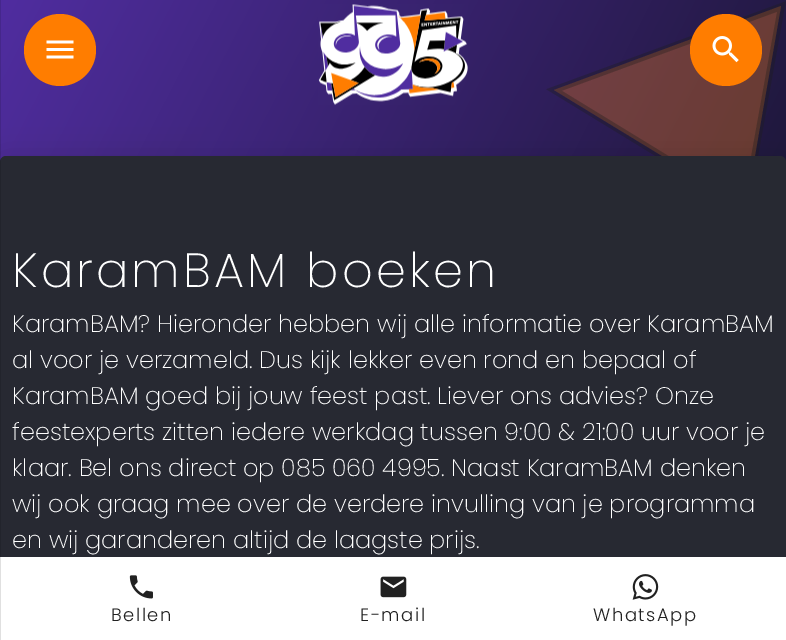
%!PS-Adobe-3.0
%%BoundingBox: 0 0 786 640
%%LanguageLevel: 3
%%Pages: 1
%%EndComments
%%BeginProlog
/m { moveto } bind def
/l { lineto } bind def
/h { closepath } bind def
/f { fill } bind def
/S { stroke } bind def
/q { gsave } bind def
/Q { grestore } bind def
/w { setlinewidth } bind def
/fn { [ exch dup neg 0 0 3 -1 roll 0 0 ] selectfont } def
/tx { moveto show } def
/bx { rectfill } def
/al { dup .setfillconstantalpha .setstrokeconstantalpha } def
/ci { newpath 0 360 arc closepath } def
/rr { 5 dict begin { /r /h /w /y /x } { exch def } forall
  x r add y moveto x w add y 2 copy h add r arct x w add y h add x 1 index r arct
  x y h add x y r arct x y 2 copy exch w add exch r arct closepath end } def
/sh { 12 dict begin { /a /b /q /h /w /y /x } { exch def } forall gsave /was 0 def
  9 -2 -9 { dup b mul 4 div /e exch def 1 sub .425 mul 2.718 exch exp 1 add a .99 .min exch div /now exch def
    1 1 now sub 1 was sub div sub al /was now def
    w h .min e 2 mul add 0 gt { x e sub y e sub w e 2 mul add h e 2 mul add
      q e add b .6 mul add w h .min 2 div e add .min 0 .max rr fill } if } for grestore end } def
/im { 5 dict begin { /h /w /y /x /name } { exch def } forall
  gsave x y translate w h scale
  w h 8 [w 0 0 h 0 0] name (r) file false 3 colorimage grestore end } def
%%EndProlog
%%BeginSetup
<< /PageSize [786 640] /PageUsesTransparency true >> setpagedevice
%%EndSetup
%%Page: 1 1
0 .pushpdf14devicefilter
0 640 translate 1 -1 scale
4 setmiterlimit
1 setgray
0 0 786 640 bx
q 0 0 m 786 0 l 786 162 l 0 162 l h clip newpath
<< /ShadingType 2 /ColorSpace /DeviceRGB /Coords [-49 94 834 550] /Extend [true true] /Function << /FunctionType 3 /Domain [0 1] /Functions [<< /FunctionType 2 /Domain [0 1] /C0 [0.314 0.176 0.627] /C1 [0.118 0.09 0.224] /N 1 >> << /FunctionType 2 /Domain [0 1] /C0 [0.118 0.09 0.224] /C1 [0.118 0.09 0.224] /N 1 >>] /Bounds [0.8] /Encode [0 1 0 1] >> >> shfill Q
0.35 al
0.937 0.486 0.102 setrgbcolor
781 6 m 746 207 l 554 90 l h f
0.114 0.114 0.106 setrgbcolor
6.7 w
781.5 6.5 m 745.5 207 l 554 90 l h S
1 al
1 0.49 0 setrgbcolor
60 50 36 ci f
(image0.raw) 46 40 28 19 im
(image1.raw) 318 4 150 101 im
726 50 36 ci f
(image2.raw) 712 36 27 27 im
0 setgray
-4 158 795 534 11 13.5 0.12 sh
0.153 0.161 0.196 setrgbcolor
0 156 786 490 6 rr f
1 setgray
0 557 786 83 bx
0.12 al
0 setgray
0 0 1 640 bx
/Poppins-ExtraLight 48 fn
1 al
1 setgray
12 287 m 3.1 0 (KaramBAM boeken) ashow
/Poppins-ExtraLight 24 fn
(KaramBAM? Hieronder hebben wij alle informatie over KaramBAM) 12 332 tx
(al voor je verzameld. Dus kijk lekker even rond en bepaal of) 12 368 tx
(KaramBAM goed bij jouw feest past. Liever ons advies? Onze) 12 404 tx
(feestexperts zitten iedere werkdag tussen 9:00 & 21:00 uur voor je) 12 440 tx
(klaar. Bel ons direct op 085 060 4995. Naast KaramBAM denken) 12 476 tx
(wij ook graag mee over de verdere invulling van je programma) 12 512 tx
(en wij garanderen altijd de laagste prijs.) 12 548 tx
(image3.raw) 129 575 24 24 im
/Poppins-Light 18 fn
0.129 setgray
111 621 m 1.5 0 (Bellen) ashow
(image4.raw) 380 576 27 22 im
360 621 m 1.5 0 (E-mail) ashow
(image5.raw) 632 574 27 26 im
593 621 m 1.5 0 (WhatsApp) ashow
.poppdf14devicefilter showpage
%%EOF
